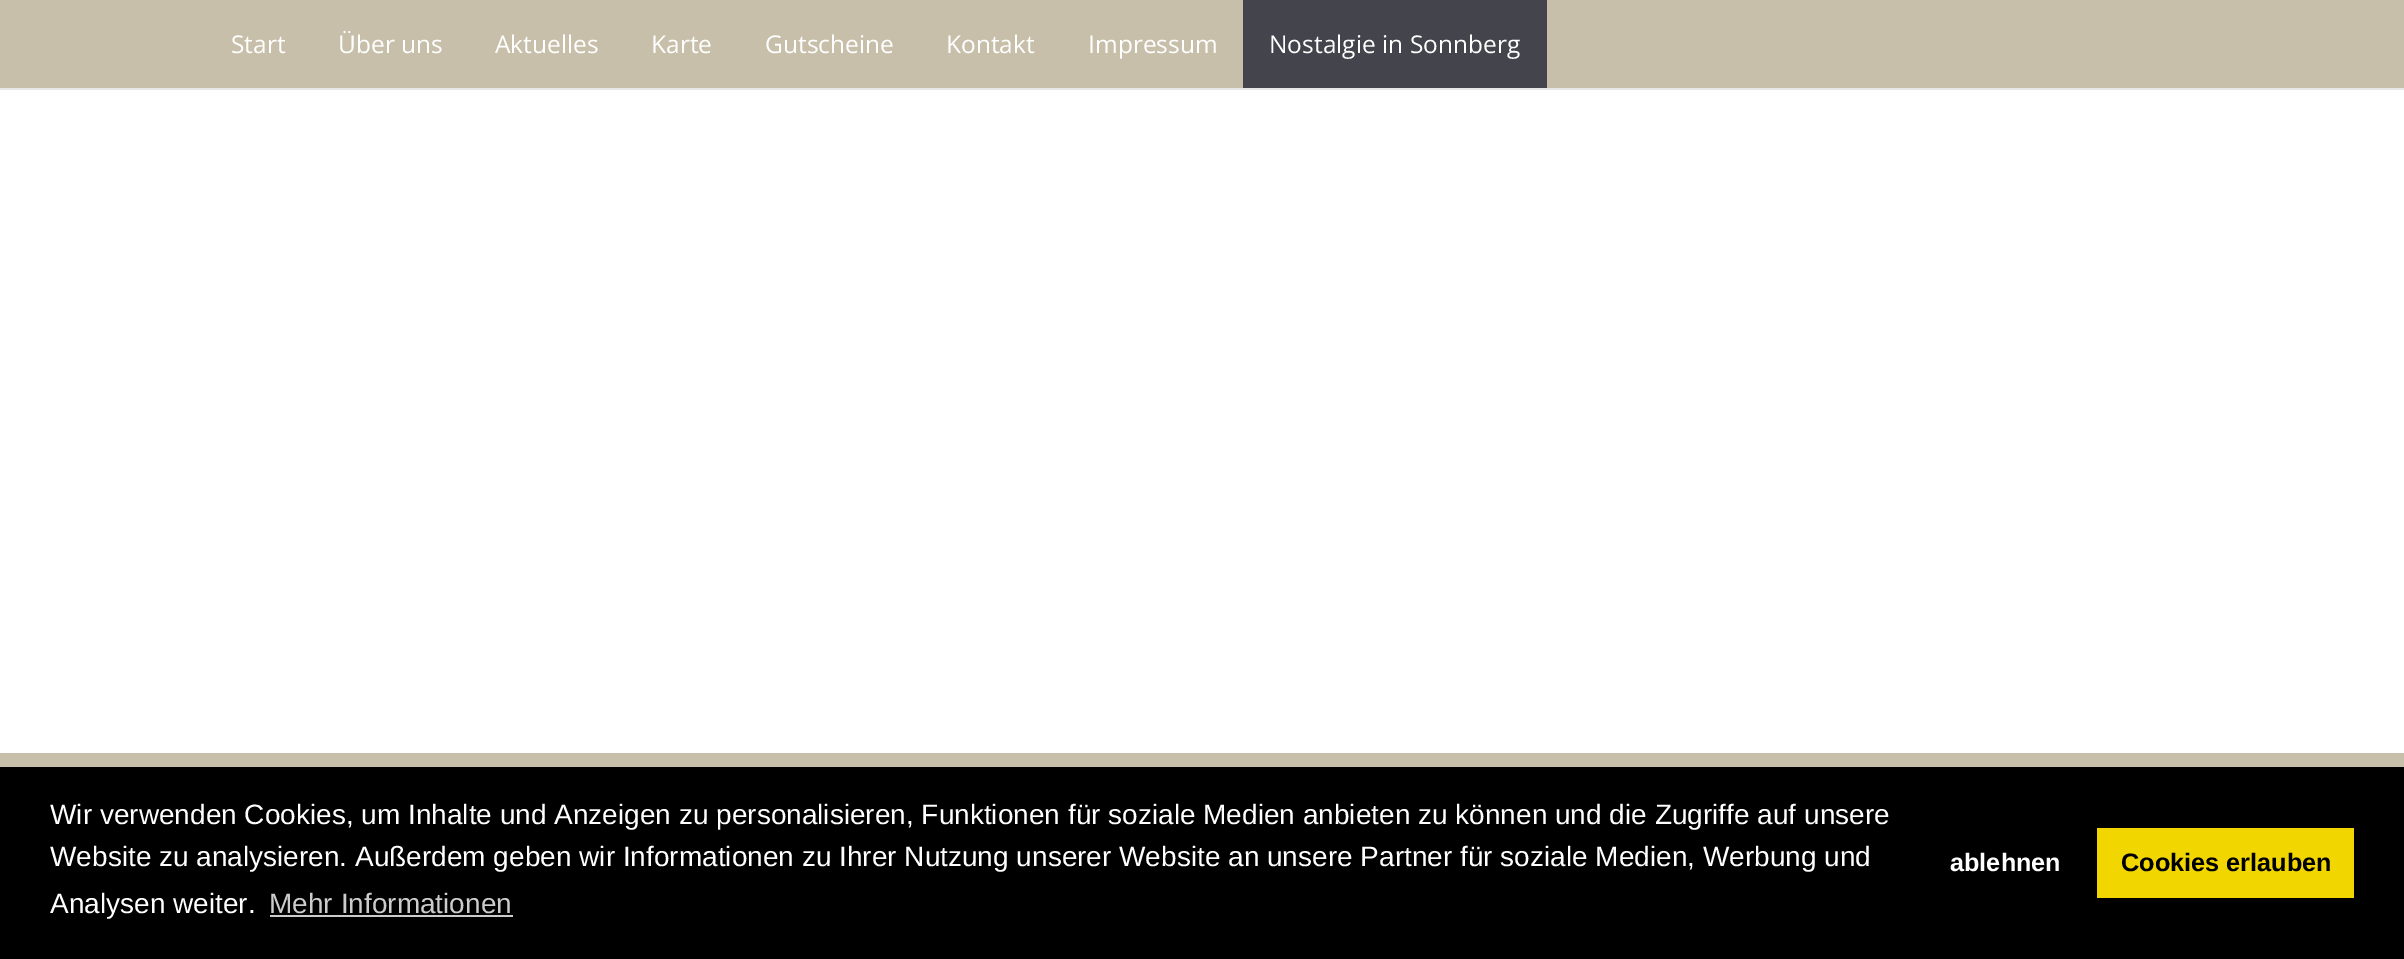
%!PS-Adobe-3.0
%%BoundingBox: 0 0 2404 959
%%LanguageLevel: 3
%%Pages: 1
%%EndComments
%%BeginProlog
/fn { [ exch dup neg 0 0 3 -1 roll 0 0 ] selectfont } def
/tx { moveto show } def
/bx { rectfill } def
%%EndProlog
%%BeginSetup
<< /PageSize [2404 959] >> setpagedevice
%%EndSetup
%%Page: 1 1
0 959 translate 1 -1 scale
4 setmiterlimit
1 setgray
0 0 2404 959 bx
0.784 0.749 0.671 setrgbcolor
0 0 2404 88 bx
0.906 setgray
0 88 2404 2 bx
/OpenSans-Regular 24.5 fn
1 setgray
(Start) 231 53 tx
(Über uns) 338 53 tx
(Aktuelles) 495 53 tx
(Karte) 651 53 tx
(Gutscheine) 765 53 tx
(Kontakt) 946 53 tx
(Impressum) 1088 53 tx
0.267 0.267 0.298 setrgbcolor
1243 0 304 88 bx
1 setgray
(Nostalgie in Sonnberg) 1269 53 tx
0.784 0.749 0.671 setrgbcolor
0 753 2404 14 bx
0 setgray
0 767 2404 192 bx
/LiberationSans-Regular 28 fn
1 setgray
(Wir verwenden Cookies, um Inhalte und Anzeigen zu personalisieren, Funktionen für soziale Medien anbieten zu können und die Zugriffe auf unsere) 50 824 tx
(Website zu analysieren. Außerdem geben wir Informationen zu Ihrer Nutzung unserer Website an unsere Partner für soziale Medien, Werbung und) 50 866 tx
(Analysen weiter.) 50 913 tx
0.8 setgray
(Mehr Informationen) 269 913 tx
270 915 243 2 bx
/LiberationSans-Bold 25.25 fn
1 setgray
(ablehnen) 1950 871 tx
0.945 0.839 0 setrgbcolor
2097 828 257 70 bx
0 setgray
(Cookies erlauben) 2121 871 tx
showpage
%%EOF
